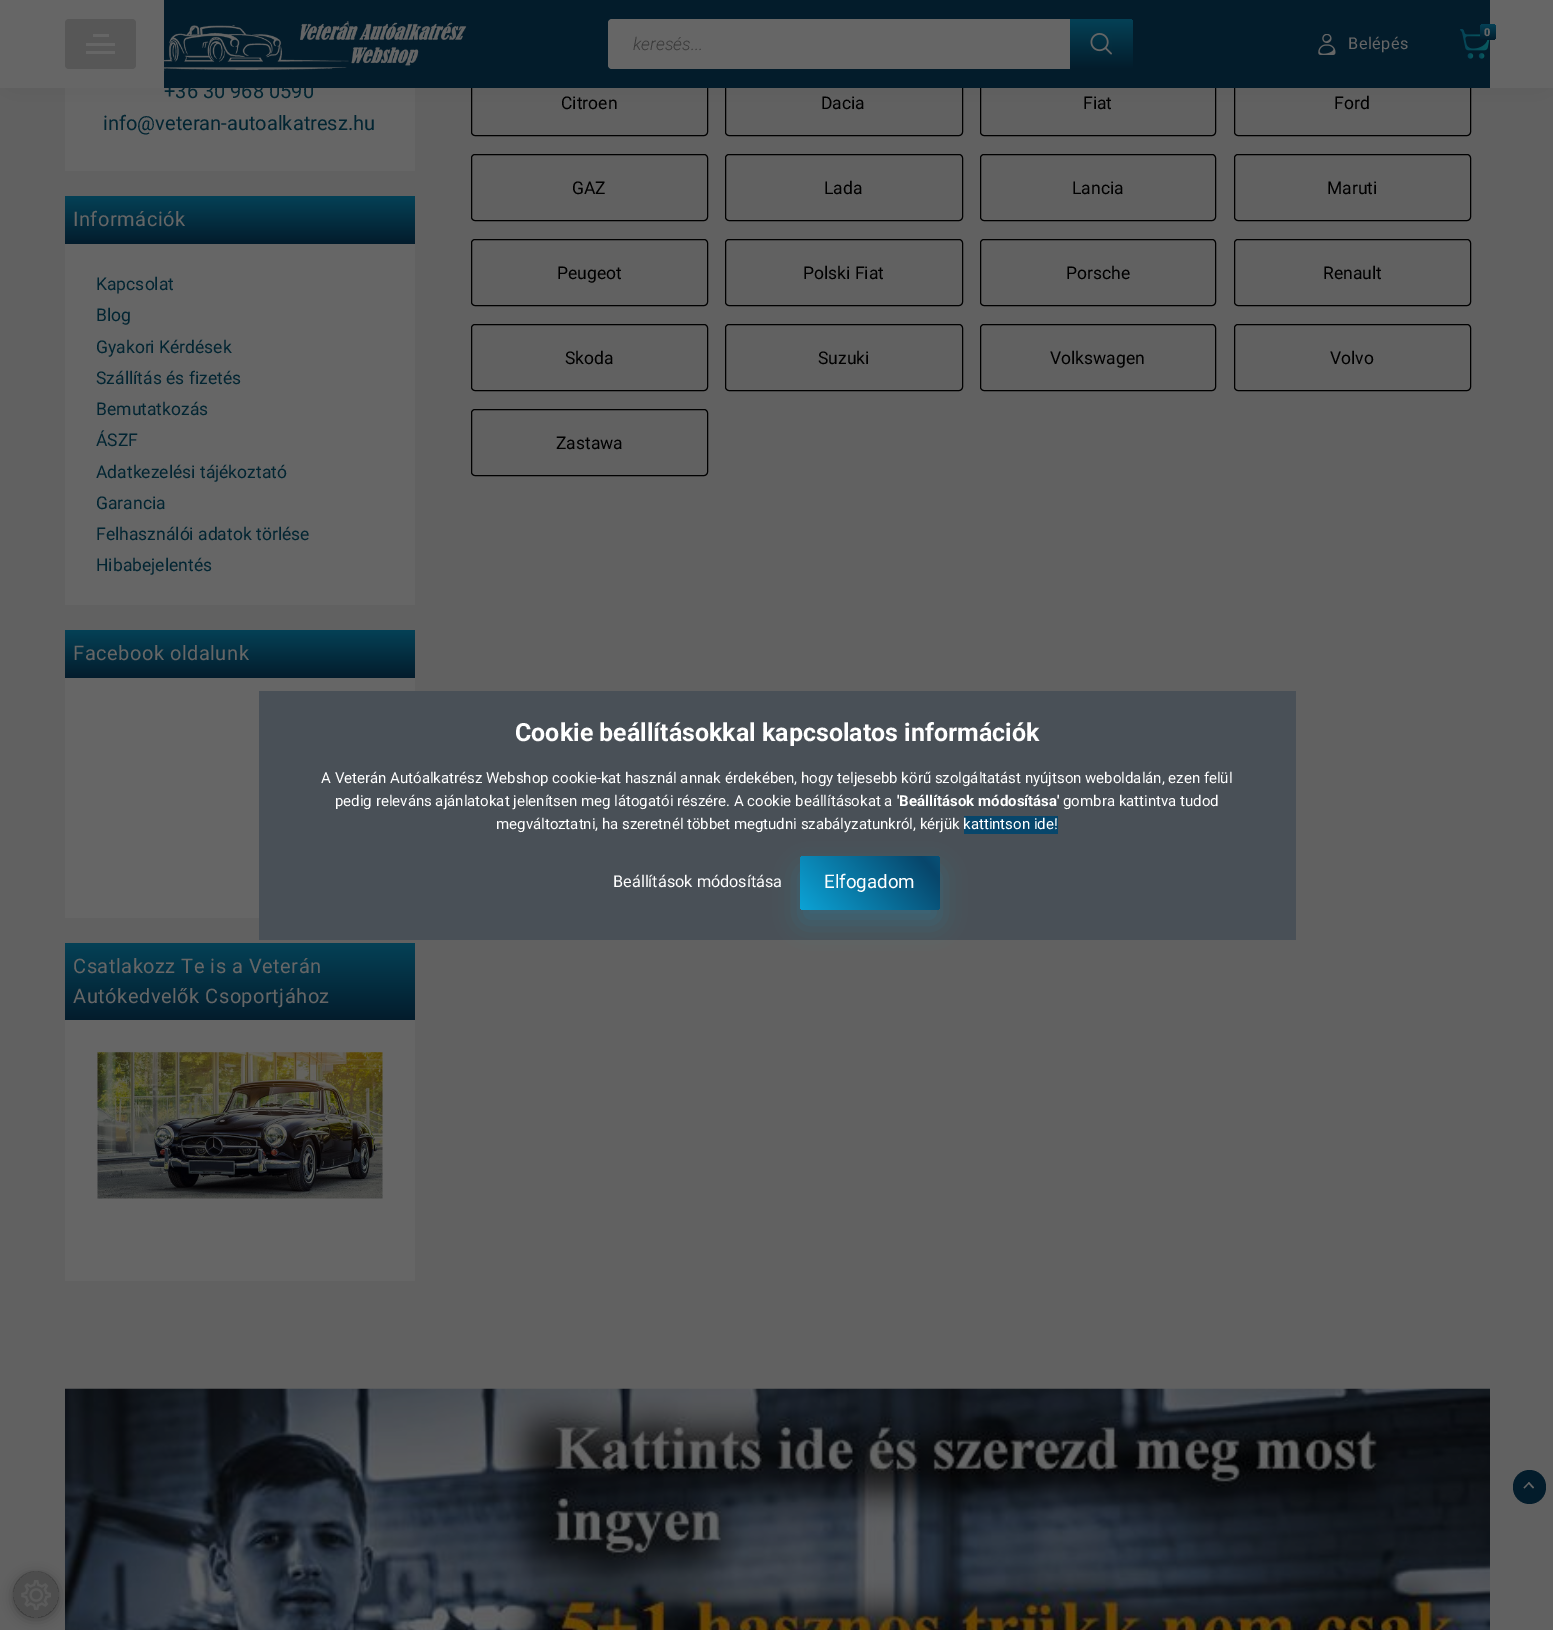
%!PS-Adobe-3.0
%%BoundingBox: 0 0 1553 1630
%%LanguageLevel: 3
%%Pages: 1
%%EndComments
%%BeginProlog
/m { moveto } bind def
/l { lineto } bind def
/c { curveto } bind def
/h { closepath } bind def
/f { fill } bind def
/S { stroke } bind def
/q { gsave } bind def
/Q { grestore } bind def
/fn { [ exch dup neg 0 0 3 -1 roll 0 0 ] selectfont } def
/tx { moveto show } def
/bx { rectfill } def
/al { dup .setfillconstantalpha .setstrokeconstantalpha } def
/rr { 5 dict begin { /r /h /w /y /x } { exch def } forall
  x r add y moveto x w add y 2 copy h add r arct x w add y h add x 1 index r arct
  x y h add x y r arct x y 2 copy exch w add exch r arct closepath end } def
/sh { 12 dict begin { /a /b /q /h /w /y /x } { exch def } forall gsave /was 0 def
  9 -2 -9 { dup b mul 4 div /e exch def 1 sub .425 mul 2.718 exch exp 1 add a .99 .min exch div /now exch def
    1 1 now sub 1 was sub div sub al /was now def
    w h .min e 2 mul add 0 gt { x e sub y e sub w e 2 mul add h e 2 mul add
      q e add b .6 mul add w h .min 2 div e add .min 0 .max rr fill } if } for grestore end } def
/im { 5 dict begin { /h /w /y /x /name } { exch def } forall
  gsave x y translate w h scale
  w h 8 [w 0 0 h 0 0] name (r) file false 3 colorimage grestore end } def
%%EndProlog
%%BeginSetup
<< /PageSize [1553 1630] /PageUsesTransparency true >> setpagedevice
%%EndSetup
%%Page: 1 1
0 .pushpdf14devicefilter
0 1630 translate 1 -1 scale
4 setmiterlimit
0.38 setgray
0 0 1553 1630 bx
0.4 setgray
65 88 350 83 bx
0 setgray
471.5 69.5 236 66 3.5 rr S
725.5 69.5 237 66 3.5 rr S
980.5 69.5 235 66 3.5 rr S
1234.5 69.5 236 66 3.5 rr S
13 13 1528 62 0 15.5 0.15 sh
/Roboto-Regular 20 fn
0.008 0.145 0.196 setrgbcolor
(+36 30 968 0590) 164 98 tx
0.4 setgray
0 0 1553 88 bx
0.341 setgray
65 19 71 50 4 rr f
0.4 setgray
93 34 16 3 bx
86 51 29 3 bx
86 43 29 3 bx
0.012 0.11 0.169 setrgbcolor
164 0 1326 88 bx
(image0.raw) 164 21 303 50 im
0.4 setgray
608 19 525 50 4 rr f
/Roboto-LightItalic 17.5 fn
0.224 setgray
(keresés...) 633 50 tx
q 1070 19 m 1129 19 l 1131 19 1133 21 1133 23 c 1133 65 l 1133 67 1131 69 1129 69 c 1070 69 l h clip newpath
<< /ShadingType 2 /ColorSpace /DeviceRGB /Coords [1101 19 1101 69] /Extend [true true] /Function << /FunctionType 2 /Domain [0 1] /C0 [0.02 0.255 0.337] /C1 [0.012 0.11 0.169] /N 1 >> >> shfill Q
(image1.raw) 1090 33 22 22 im
(image2.raw) 1460 29 30 30 im
q 1480 24 16 16 4 rr clip newpath
<< /ShadingType 2 /ColorSpace /DeviceRGB /Coords [1488 24 1488 40] /Extend [true true] /Function << /FunctionType 2 /Domain [0 1] /C0 [0.02 0.255 0.337] /C1 [0.012 0.11 0.169] /N 1 >> >> shfill Q
/Roboto-Black 11 fn
0.4 setgray
(0) 1484 36 tx
(image3.raw) 1318 34 18 21 im
/Roboto-Regular 16.25 fn
1348 49 m 0.5 0 (Belépés) ashow
/Roboto-Regular 20 fn
0.008 0.145 0.196 setrgbcolor
(info@veteran-autoalkatresz.hu) 103 130 tx
q 65 196 m 415 196 l 415 244 l 65 244 l h clip newpath
<< /ShadingType 2 /ColorSpace /DeviceRGB /Coords [240 196 240 244] /Extend [true true] /Function << /FunctionType 2 /Domain [0 1] /C0 [0.02 0.255 0.337] /C1 [0.012 0.11 0.173] /N 1 >> >> shfill Q
0.4 setgray
73 226 m 0.5 0 (Információk) ashow
65 244 350 361 bx
/Roboto-Regular 17.5 fn
0.008 0.145 0.196 setrgbcolor
(Kapcsolat) 96 290 tx
(Blog) 96 321 tx
(Gyakori Kérdések) 96 353 tx
(Szállítás és fizetés) 96 384 tx
(Bemutatkozás) 96 415 tx
(ÁSZF) 96 446 tx
(Adatkezelési tájékoztató) 96 478 tx
(Garancia) 96 509 tx
(Felhasználói adatok törlése) 96 540 tx
(Hibabejelentés) 96 571 tx
q 65 630 m 415 630 l 415 678 l 65 678 l h clip newpath
<< /ShadingType 2 /ColorSpace /DeviceRGB /Coords [240 630 240 678] /Extend [true true] /Function << /FunctionType 2 /Domain [0 1] /C0 [0.02 0.255 0.337] /C1 [0.012 0.11 0.173] /N 1 >> >> shfill Q
/Roboto-Regular 20 fn
0.4 setgray
73 660 m 0.5 0 (Facebook oldalunk) ashow
65 678 350 240 bx
q 65 943 m 415 943 l 415 1020 l 65 1020 l h clip newpath
<< /ShadingType 2 /ColorSpace /DeviceRGB /Coords [240 943 240 1020] /Extend [true true] /Function << /FunctionType 2 /Domain [0 1] /C0 [0.02 0.255 0.337] /C1 [0.012 0.11 0.173] /N 1 >> >> shfill Q
73 973 m 0.5 0 (Csatlakozz Te is a Veterán) ashow
73 1003 m 0.5 0 (Autókedvelők Csoportjához) ashow
65 1020 350 261 bx
(image4.raw) 97 1052 286 147 im
/Roboto-Regular 17.5 fn
0 setgray
(Citroen) 561 109 tx
(Dacia) 821 109 tx
(Fiat) 1083 109 tx
(Ford) 1334 109 tx
471.5 154.5 236 66 3.5 rr S
(GAZ) 572 194 tx
725.5 154.5 237 66 3.5 rr S
(Lada) 824 194 tx
980.5 154.5 235 66 3.5 rr S
(Lancia) 1072 194 tx
1234.5 154.5 236 66 3.5 rr S
(Maruti) 1327 194 tx
471.5 239.5 236 66 3.5 rr S
(Peugeot) 557 279 tx
725.5 239.5 237 66 3.5 rr S
(Polski Fiat) 803 279 tx
980.5 239.5 235 66 3.5 rr S
(Porsche) 1066 279 tx
1234.5 239.5 236 66 3.5 rr S
(Renault) 1323 279 tx
471.5 324.5 236 66 3.5 rr S
(Skoda) 565 364 tx
725.5 324.5 237 66 3.5 rr S
(Suzuki) 818 364 tx
980.5 324.5 235 66 3.5 rr S
(Volkswagen) 1050 364 tx
1234.5 324.5 236 66 3.5 rr S
(Volvo) 1330 364 tx
471.5 409.5 236 66 3.5 rr S
(Zastawa) 556 449 tx
(image5.raw) 65 1388 1425 242 im
0.012 0.11 0.169 setrgbcolor
1513 1470 33 34 16.5 rr f
0.4 setgray
1524.5 1488.5 m 1523.5 1487.5 l 1529 1482 l 1529.5 1483 l h f
1533 1488.5 m 1528 1483 l 1529 1482 l 1534 1487.5 l h f
q
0 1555 m 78 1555 l 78 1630 l 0 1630 l h 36 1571 m 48.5 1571 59 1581.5 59 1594 c 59 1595 l 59 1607.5 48.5 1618 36 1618 c 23.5 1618 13 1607.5 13 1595 c 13 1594 l 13 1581.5 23.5 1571 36 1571 c h eoclip newpath
0 setgray
13 1574 46 46 23 6 0.3 sh
Q
0.3 al
0.122 setgray
13 1571 46 47 23 rr f
1 al
(image6.raw) 21 1580 30 30 im
0.286 0.314 0.341 setrgbcolor
259 691 1037 249 bx
/Roboto-Bold 25 fn
1 setgray
(Cookie beállításokkal kapcsolatos információk) 515 741 tx
/Roboto-Regular 15 fn
(A Veterán Autóalkatrész Webshop cookie-kat használ annak érdekében, hogy teljesebb körű szolgáltatást nyújtson weboldalán, ezen felül) 321 783 tx
(pedig releváns ajánlatokat jelenítsen meg látogatói részére. A cookie beállításokat a) 335 806 tx
/Roboto-Bold 15 fn
('Beállítások módosítása') 897 806 tx
/Roboto-Regular 15 fn
(gombra kattintva tudod) 1063 806 tx
(megváltoztatni, ha szeretnél többet megtudni szabályzatunkról, kérjük) 496 829 tx
0.027 0.275 0.42 setrgbcolor
964 816 94 18 bx
1 setgray
(kattintson ide!) 963 829 tx
/Roboto-Regular 16.25 fn
(Beállítások módosítása) 613 887 tx
0.047 0.639 0.839 setrgbcolor
800 869 140 54 4 12.5 0.25 sh
q 800 856 140 54 4 rr clip newpath
<< /ShadingType 2 /ColorSpace /DeviceRGB /Coords [845 963 1035 803] /Extend [true true] /Function << /FunctionType 3 /Domain [0 1] /Functions [<< /FunctionType 2 /Domain [0 1] /C0 [0.047 0.639 0.839] /C1 [0.027 0.275 0.42] /N 1 >> << /FunctionType 2 /Domain [0 1] /C0 [0.027 0.275 0.42] /C1 [0.047 0.639 0.839] /N 1 >>] /Bounds [0.51] /Encode [0 1 0 1] >> >> shfill Q
/Roboto-Regular 18.75 fn
1 setgray
(Elfogadom) 824 888 tx
.poppdf14devicefilter showpage
%%EOF
